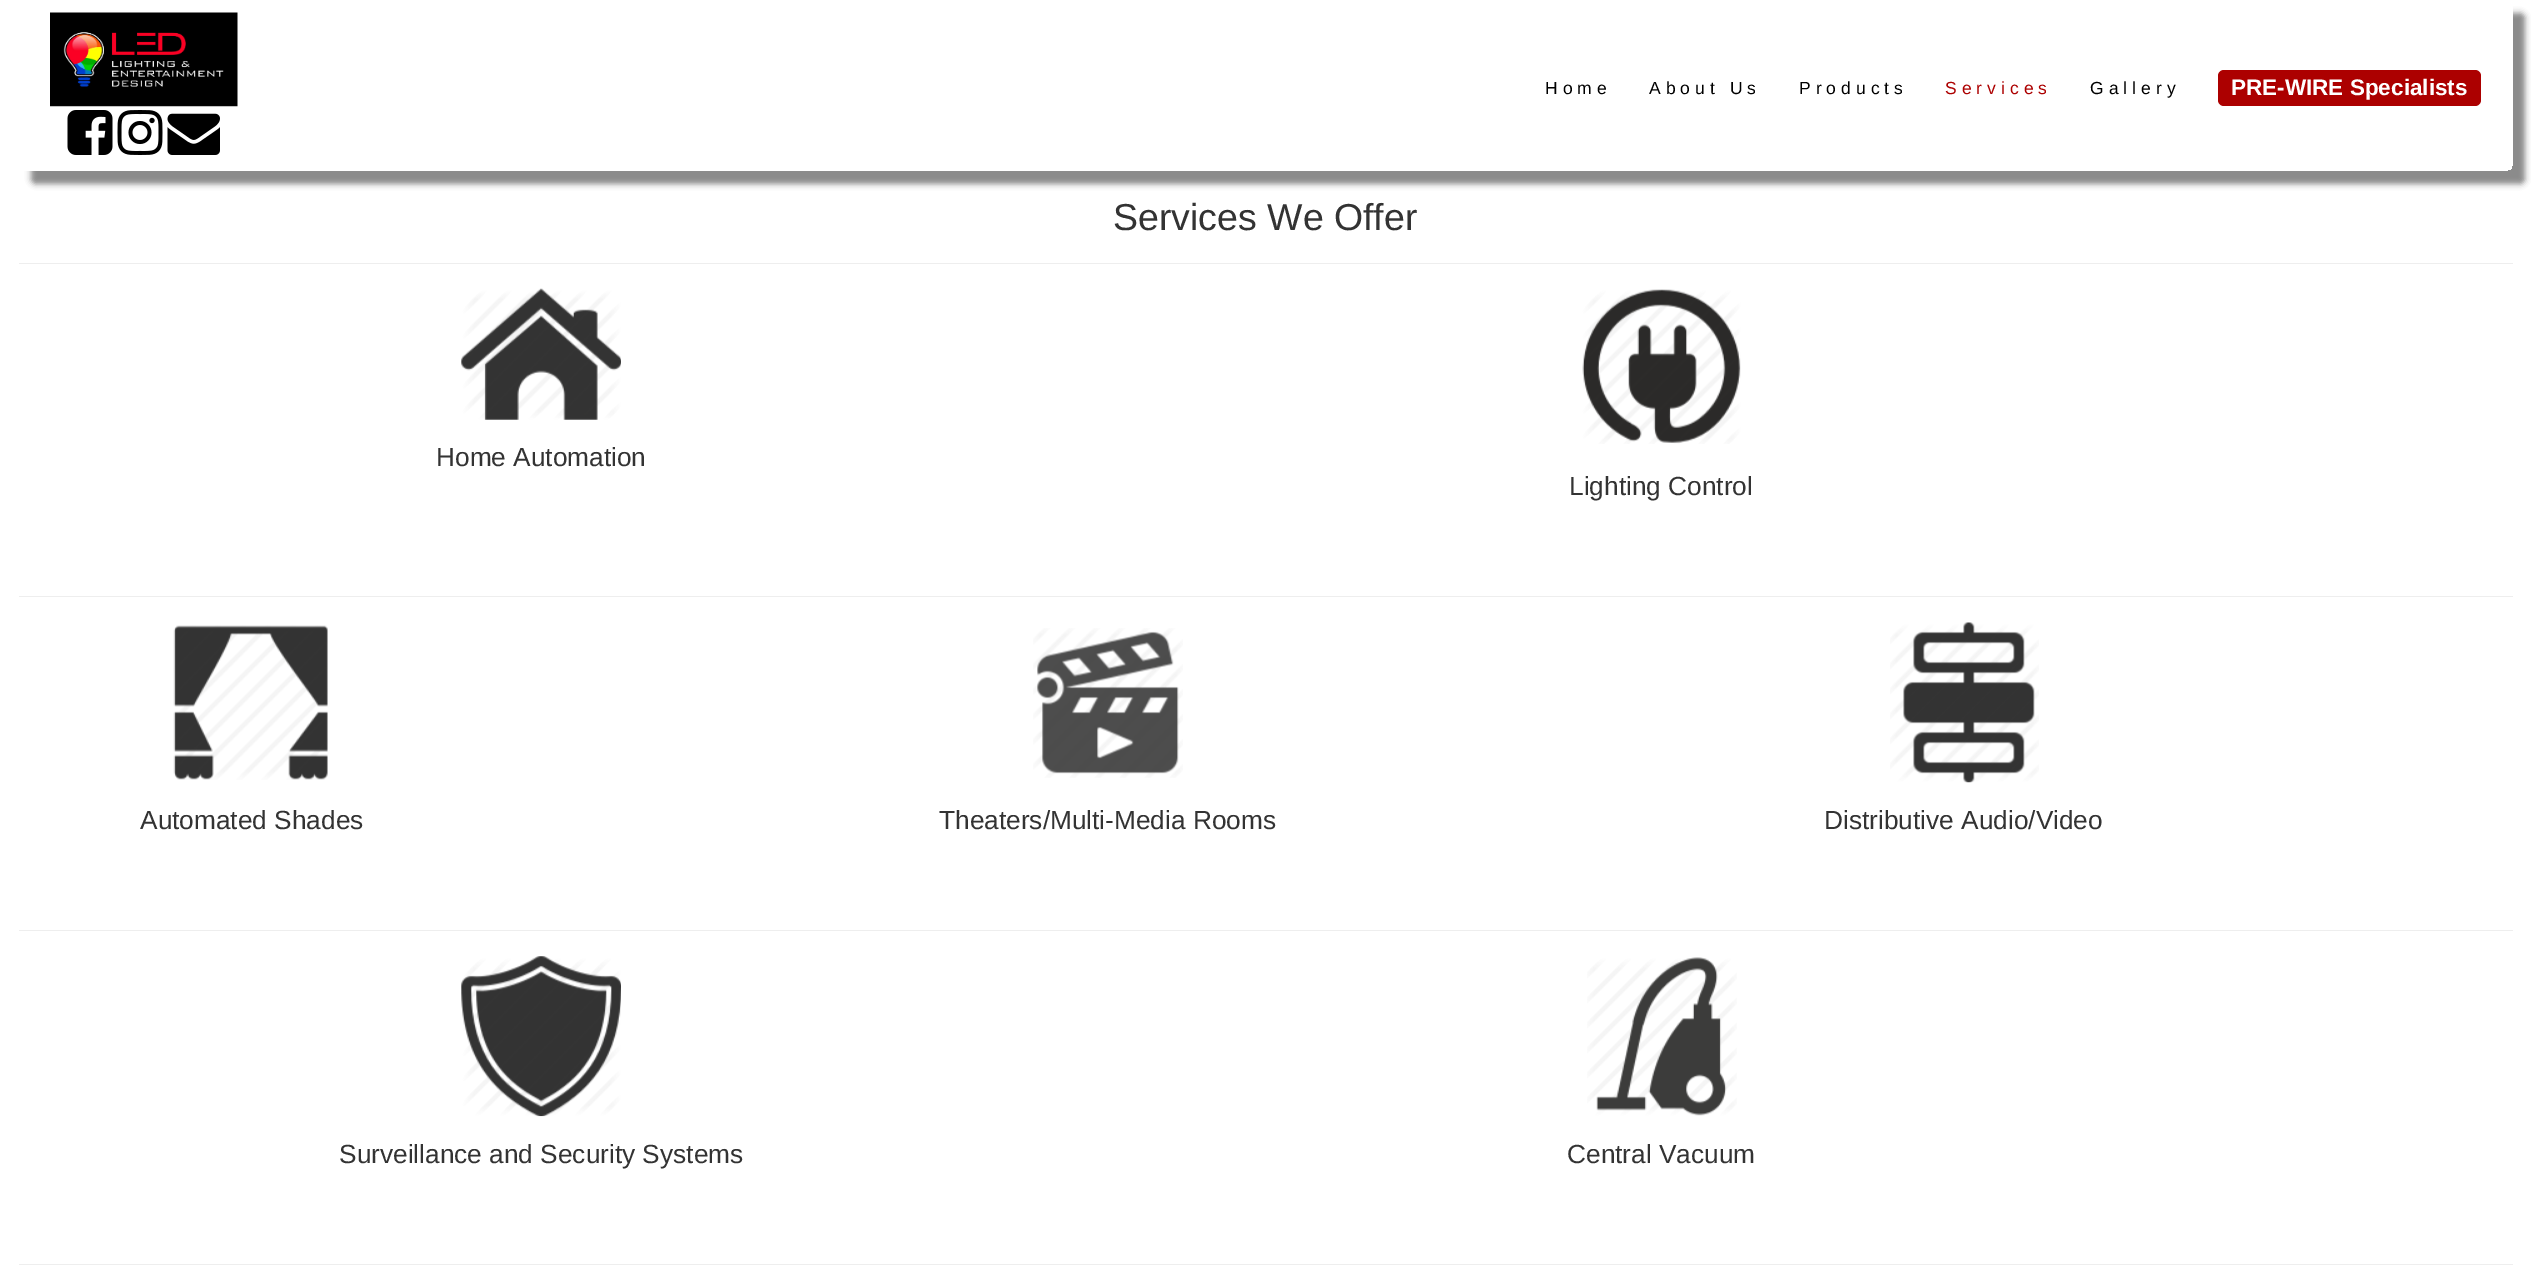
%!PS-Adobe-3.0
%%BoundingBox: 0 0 2531 1273
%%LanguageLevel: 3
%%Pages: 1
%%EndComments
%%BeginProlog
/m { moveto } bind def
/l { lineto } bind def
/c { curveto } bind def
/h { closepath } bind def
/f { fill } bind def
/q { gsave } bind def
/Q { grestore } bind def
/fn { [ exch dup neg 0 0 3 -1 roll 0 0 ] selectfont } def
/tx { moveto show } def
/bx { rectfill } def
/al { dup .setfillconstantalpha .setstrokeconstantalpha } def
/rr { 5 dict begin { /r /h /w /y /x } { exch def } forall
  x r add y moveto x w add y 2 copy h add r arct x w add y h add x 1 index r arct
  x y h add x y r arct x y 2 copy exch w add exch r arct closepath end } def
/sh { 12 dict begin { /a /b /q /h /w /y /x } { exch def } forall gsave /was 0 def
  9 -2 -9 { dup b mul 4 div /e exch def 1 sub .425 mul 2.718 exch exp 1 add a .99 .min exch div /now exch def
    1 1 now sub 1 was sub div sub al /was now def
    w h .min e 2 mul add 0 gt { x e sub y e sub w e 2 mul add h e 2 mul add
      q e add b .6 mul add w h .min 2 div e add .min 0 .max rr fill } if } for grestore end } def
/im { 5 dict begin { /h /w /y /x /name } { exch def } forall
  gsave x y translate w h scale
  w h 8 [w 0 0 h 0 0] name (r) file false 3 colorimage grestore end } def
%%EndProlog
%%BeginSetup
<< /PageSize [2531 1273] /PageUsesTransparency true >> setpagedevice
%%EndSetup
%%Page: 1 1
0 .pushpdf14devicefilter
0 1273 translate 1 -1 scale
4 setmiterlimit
1 setgray
0 0 2531 1273 bx
q
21 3 m 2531 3 l 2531 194 l 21 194 l h 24 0 m 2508 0 l 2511 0 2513 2 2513 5 c 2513 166 l 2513 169 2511 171 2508 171 c 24 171 l 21 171 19 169 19 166 c 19 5 l 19 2 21 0 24 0 c h eoclip newpath
0.533 setgray
31 13 2494 171 5 3 1 sh
Q
(image0.raw) 50 12 188 95 im
(image1.raw) 67 110 46 45 im
(image2.raw) 117 110 46 45 im
(image3.raw) 167 113 53 42 im
/LiberationSans-Regular 17.5 fn
0 setgray
1545 94 m 5 0 (Home) ashow
1649 94 m 5 0 (About Us) ashow
1799 94 m 5 0 (Products) ashow
0.675 0 0 setrgbcolor
1945 94 m 5 0 (Services) ashow
0 setgray
2090 94 m 5 0 (Gallery) ashow
0.675 0 0 setrgbcolor
2218 70 263 36 6 rr f
/LiberationSans-Bold 22.5 fn
1 setgray
(PRE-WIRE Specialists) 2231 95 tx
/LiberationSans-Regular 37.5 fn
0.2 setgray
(Services We Offer) 1113 230 tx
0.933 setgray
19 263 2494 1 bx
(image4.raw) 461 288 160 132 im
/LiberationSans-Regular 26.25 fn
0.2 setgray
(Home Automation) 436 466 tx
(image5.raw) 1582 289 159 155 im
(Lighting Control) 1569 495 tx
0.933 setgray
19 596 2494 1 bx
(image6.raw) 173 625 155 155 im
0.2 setgray
(Automated Shades) 140 829 tx
(image7.raw) 1033 628 150 150 im
(Theaters/Multi-Media Rooms) 939 829 tx
(image8.raw) 1890 622 149 161 im
(Distributive Audio/Video) 1824 829 tx
0.933 setgray
19 930 2494 1 bx
(image9.raw) 461 956 160 161 im
0.2 setgray
(Surveillance and Security Systems) 339 1163 tx
(image10.raw) 1587 957 150 159 im
(Central Vacuum) 1567 1163 tx
0.933 setgray
19 1264 2494 1 bx
.poppdf14devicefilter showpage
%%EOF
